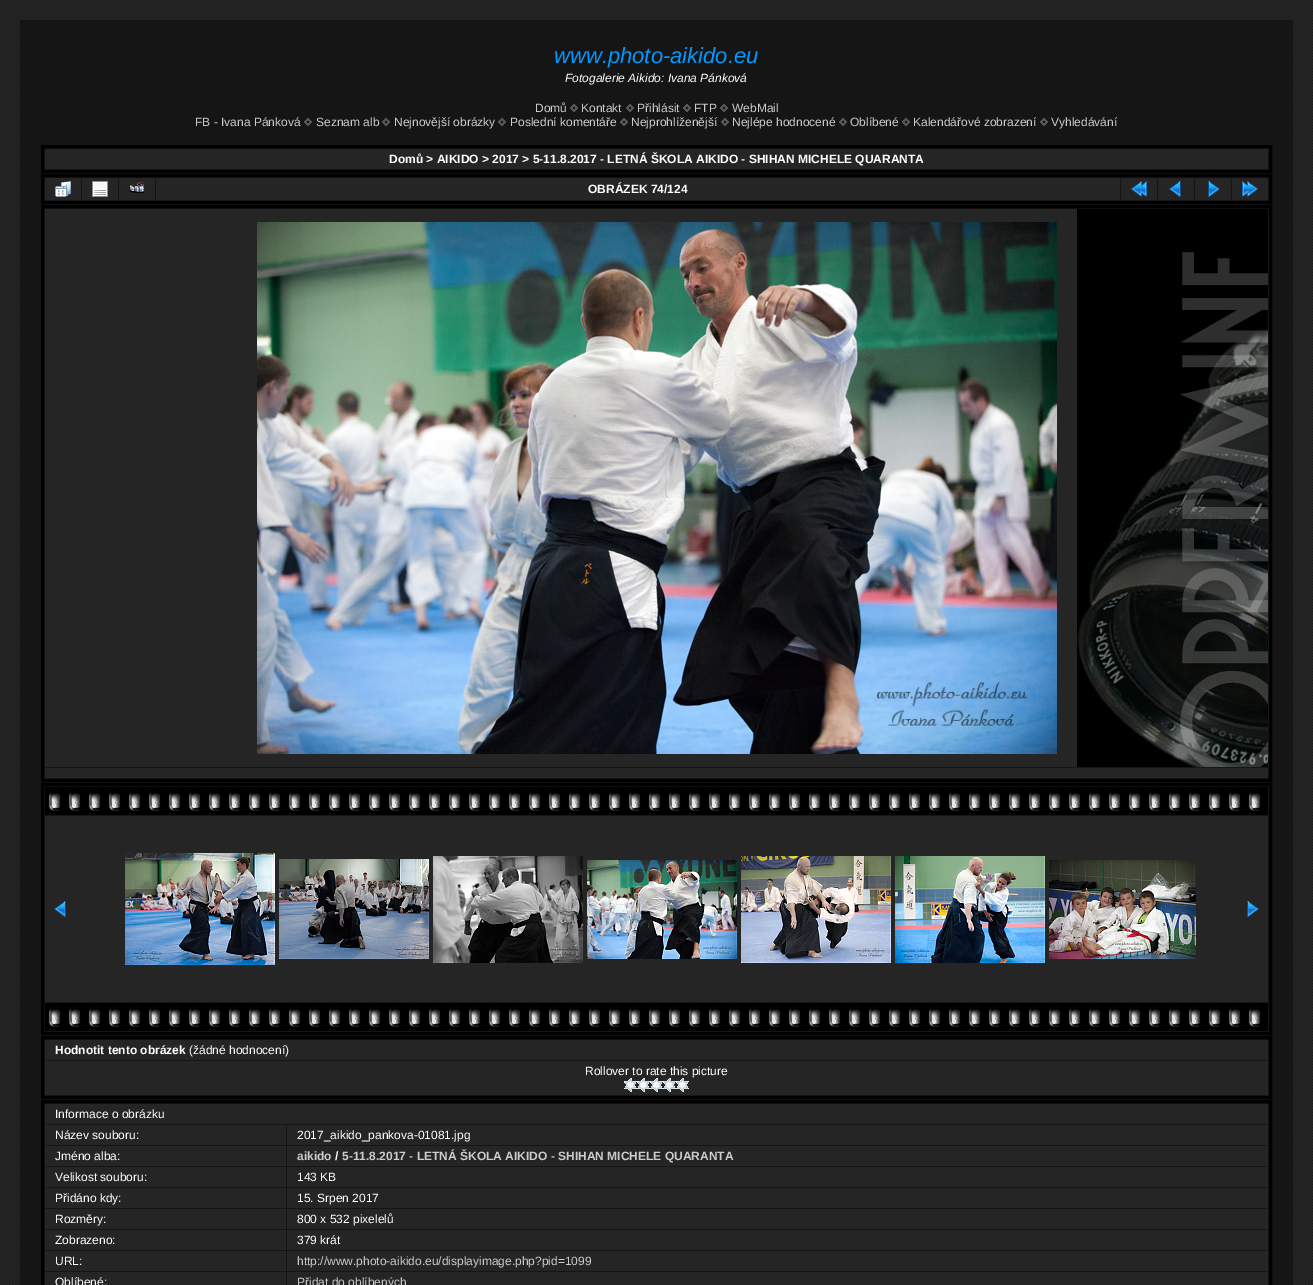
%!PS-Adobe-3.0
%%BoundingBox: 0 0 1313 1285
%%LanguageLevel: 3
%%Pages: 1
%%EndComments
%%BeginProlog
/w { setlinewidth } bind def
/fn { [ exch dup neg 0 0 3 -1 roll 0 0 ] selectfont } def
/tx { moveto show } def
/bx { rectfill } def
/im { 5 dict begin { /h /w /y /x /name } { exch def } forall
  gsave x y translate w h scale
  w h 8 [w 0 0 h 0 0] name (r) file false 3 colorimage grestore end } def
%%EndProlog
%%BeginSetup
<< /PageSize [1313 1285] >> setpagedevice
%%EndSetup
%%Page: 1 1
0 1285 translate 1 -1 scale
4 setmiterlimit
1 setgray
0 0 1313 1285 bx
(image0.raw) 0 0 1313 1285 im
0.082 setgray
20 20 1273 1265 bx
/LiberationSans-Italic 22 fn
0 0.6 1 setrgbcolor
(www.photo-aikido.eu) 554 63 tx
/LiberationSans-Italic 12 fn
1 setgray
(Fotogalerie Aikido: Ivana Pánková) 565 82 tx
/LiberationSans-Regular 12 fn
0.8 setgray
(Domů) 535 112 tx
(image1.raw) 570 104 8 8 im
(Kontakt) 581 112 tx
(image1.raw) 626 104 8 8 im
(Přihlásit) 637 112 tx
(image1.raw) 683 104 8 8 im
(FTP) 694 112 tx
(image1.raw) 720 104 8 8 im
(WebMail) 732 112 tx
(FB - Ivana Pánková) 195 126 tx
(image1.raw) 304 118 8 8 im
(Seznam alb) 316 126 tx
(image1.raw) 382 118 8 8 im
(Nejnovější obrázky) 394 126 tx
(image1.raw) 498 118 8 8 im
(Poslední komentáře) 510 126 tx
(image1.raw) 620 118 8 8 im
(Nejprohlíženější) 631 126 tx
(image1.raw) 721 118 8 8 im
(Nejlépe hodnocené) 732 126 tx
(image1.raw) 839 118 8 8 im
(Oblíbené) 850 126 tx
(image1.raw) 902 118 8 8 im
(Kalendářové zobrazení) 913 126 tx
(image1.raw) 1040 118 8 8 im
(Vyhledávání) 1051 126 tx
0 setgray
3 w
42.5 146.5 1228 25 rectstroke
0.145 setgray
45 149 1223 20 bx
/LiberationSans-Bold 12 fn
1 setgray
(Domů > AIKIDO > 2017 > 5-11.8.2017 - LETNÁ ŠKOLA AIKIDO - SHIHAN MICHELE QUARANTA) 389 163 tx
0 setgray
42.5 175.5 1228 27 rectstroke
0.145 setgray
45 178 36 22 bx
(image2.raw) 55 181 16 16 im
82 178 36 22 bx
(image3.raw) 92 181 16 16 im
119 178 36 22 bx
(image4.raw) 129 182 16 11 im
156 178 964 22 bx
1 setgray
(OBRÁZEK 74/124) 588 193 tx
0.145 setgray
1121 178 36 22 bx
(image5.raw) 1131 181 16 16 im
1158 178 36 22 bx
(image6.raw) 1169 181 12 16 im
1195 178 36 22 bx
(image7.raw) 1208 181 12 16 im
1232 178 36 22 bx
(image8.raw) 1242 181 16 16 im
0 setgray
42.5 206.5 1228 574 rectstroke
0.145 setgray
45 209 1032 558 bx
(image9.raw) 1077 209 191 558 im
(image10.raw) 257 222 800 532 im
45 768 1223 10 bx
0 setgray
42.5 784.5 1228 249 rectstroke
(image11.raw) 45 787 1223 28 im
0.145 setgray
45 816 1223 186 bx
(image6.raw) 54 901 12 16 im
(image12.raw) 125 853 150 112 im
(image13.raw) 279 859 150 100 im
(image14.raw) 433 856 150 107 im
(image15.raw) 587 860 150 99 im
(image16.raw) 741 856 150 107 im
(image17.raw) 895 856 150 107 im
(image18.raw) 1049 860 147 99 im
(image7.raw) 1247 901 12 16 im
(image11.raw) 45 1003 1223 28 im
0 setgray
42.5 1037.5 1228 60 rectstroke
0.145 setgray
45 1040 1223 20 bx
1 setgray
(Hodnotit tento obrázek) 55 1054 tx
/LiberationSans-Regular 12 fn
(\(žádné hodnocení\)) 189 1054 tx
0.145 setgray
45 1061 1223 34 bx
1 setgray
(Rollover to rate this picture) 585 1075 tx
(image19.raw) 624 1078 13 14 im
(image19.raw) 637 1078 13 14 im
(image19.raw) 650 1078 13 14 im
(image19.raw) 663 1078 13 14 im
(image19.raw) 676 1078 13 14 im
0 setgray
42.5 1101.5 1228 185 rectstroke
0.145 setgray
45 1104 1223 20 bx
1 setgray
(Informace o obrázku) 55 1118 tx
0.145 setgray
45 1125 241 20 bx
1 setgray
(Název souboru:) 55 1139 tx
0.145 setgray
287 1125 981 20 bx
1 setgray
(2017_aikido_pankova-01081.jpg) 297 1139 tx
0.145 setgray
45 1146 241 20 bx
1 setgray
(Jméno alba:) 55 1160 tx
0.145 setgray
287 1146 981 20 bx
/LiberationSans-Bold 12 fn
0.8 setgray
(aikido) 297 1160 tx
1 setgray
(/) 335 1160 tx
0.8 setgray
(5-11.8.2017 - LETNÁ ŠKOLA AIKIDO - SHIHAN MICHELE QUARANTA) 342 1160 tx
0.145 setgray
45 1167 241 20 bx
/LiberationSans-Regular 12 fn
1 setgray
(Velikost souboru:) 55 1181 tx
0.145 setgray
287 1167 981 20 bx
1 setgray
(143 KB) 297 1181 tx
0.145 setgray
45 1188 241 20 bx
1 setgray
(Přidáno kdy:) 55 1202 tx
0.145 setgray
287 1188 981 20 bx
1 setgray
(15. Srpen 2017) 297 1202 tx
0.145 setgray
45 1209 241 20 bx
1 setgray
(Rozměry:) 55 1223 tx
0.145 setgray
287 1209 981 20 bx
1 setgray
(800 x 532 pixelelů) 297 1223 tx
0.145 setgray
45 1230 241 20 bx
1 setgray
(Zobrazeno:) 55 1244 tx
0.145 setgray
287 1230 981 20 bx
1 setgray
(379 krát) 297 1244 tx
0.145 setgray
45 1251 241 20 bx
1 setgray
(URL:) 55 1265 tx
0.145 setgray
287 1251 981 20 bx
0.8 setgray
(http://www.photo-aikido.eu/displayimage.php?pid=1099) 297 1265 tx
0.145 setgray
45 1272 241 13 bx
1 setgray
(Oblíbené:) 55 1286 tx
0.145 setgray
287 1272 981 13 bx
0.8 setgray
(Přidat do oblíbených) 297 1286 tx
showpage
%%EOF
